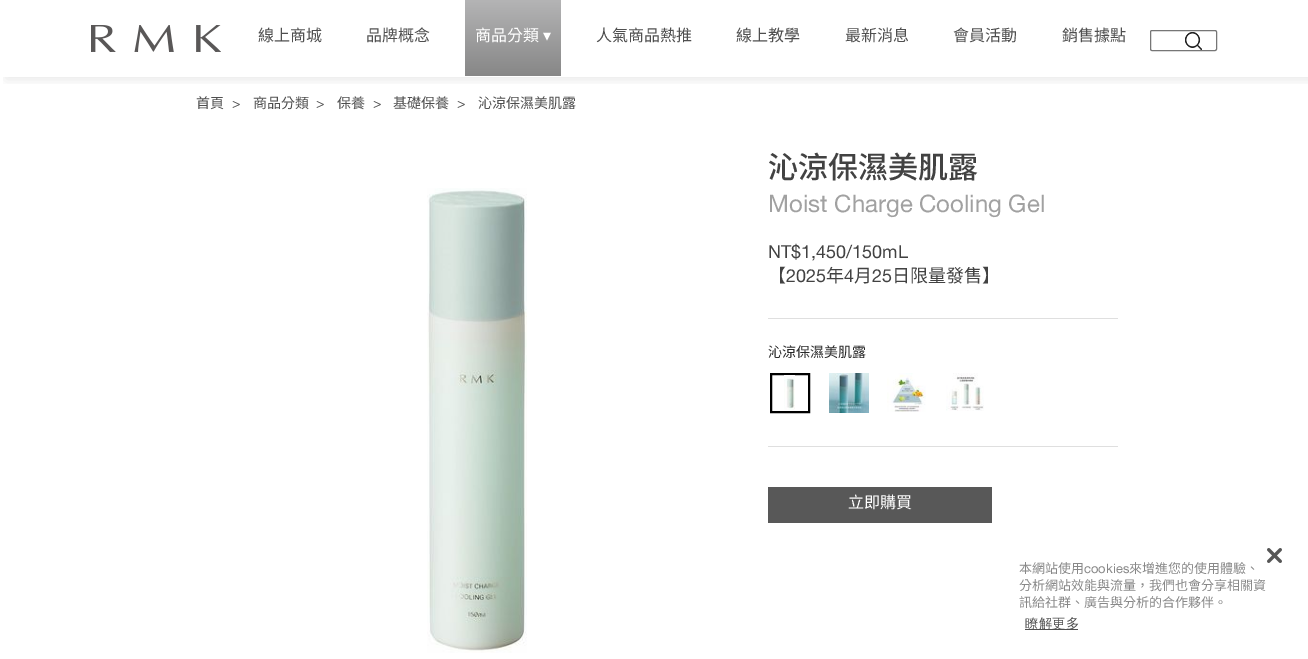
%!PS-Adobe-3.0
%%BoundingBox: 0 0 1308 659
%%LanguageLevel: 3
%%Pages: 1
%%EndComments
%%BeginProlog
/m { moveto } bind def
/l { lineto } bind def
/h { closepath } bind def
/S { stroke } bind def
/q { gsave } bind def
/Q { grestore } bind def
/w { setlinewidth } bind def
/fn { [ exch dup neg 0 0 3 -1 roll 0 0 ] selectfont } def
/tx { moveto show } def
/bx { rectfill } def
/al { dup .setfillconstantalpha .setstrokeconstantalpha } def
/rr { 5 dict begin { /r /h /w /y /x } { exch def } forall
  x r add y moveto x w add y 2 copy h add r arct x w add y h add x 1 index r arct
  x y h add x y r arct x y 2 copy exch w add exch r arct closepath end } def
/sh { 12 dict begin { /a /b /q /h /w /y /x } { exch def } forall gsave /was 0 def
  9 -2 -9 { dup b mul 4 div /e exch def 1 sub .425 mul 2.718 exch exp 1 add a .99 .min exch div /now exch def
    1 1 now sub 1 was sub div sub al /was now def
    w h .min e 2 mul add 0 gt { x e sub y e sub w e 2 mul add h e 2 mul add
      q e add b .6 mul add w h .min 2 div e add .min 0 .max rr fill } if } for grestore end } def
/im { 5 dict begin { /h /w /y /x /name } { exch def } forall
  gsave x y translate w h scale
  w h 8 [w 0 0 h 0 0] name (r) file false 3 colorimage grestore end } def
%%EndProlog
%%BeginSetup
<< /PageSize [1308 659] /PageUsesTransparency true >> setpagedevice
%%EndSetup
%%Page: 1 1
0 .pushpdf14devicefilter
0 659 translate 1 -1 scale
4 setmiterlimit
1 setgray
0 0 1308 659 bx
q
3 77 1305 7 rectclip
0 setgray
6 6 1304 73 0 6 0.1 sh
Q
(image0.raw) 91 25 130 27 im
/NotoSansTC-Regular 16 fn
0.31 setgray
(線上商城) 258 41 tx
(品牌概念) 366 41 tx
q 465 0 m 561 0 l 561 76 l 465 76 l h clip newpath
<< /ShadingType 2 /ColorSpace /DeviceRGB /Coords [513 0 513 76] /Extend [true true] /Function << /FunctionType 2 /Domain [0 1] /C0 [0.706 0.706 0.71] /C1 [0.529 0.529 0.529] /N 1 >> >> shfill Q
1 setgray
(商品分類) 475 41 tx
/DejaVuSans-Regular 16 fn
(▾) 543 41 tx
/NotoSansTC-Regular 16 fn
0.31 setgray
(人氣商品熱推) 596 41 tx
(線上教學) 736 41 tx
(最新消息) 845 41 tx
(會員活動) 953 41 tx
(銷售據點) 1062 41 tx
0.463 setgray
1150.5 30.5 66 20 1.5 rr S
(image1.raw) 1185 32 17 18 im
/NotoSansTC-Regular 14 fn
0.31 setgray
(首頁) 196 108 tx
/HelveticaNeue-Regular 14 fn
(>) 232 108 tx
/NotoSansTC-Regular 14 fn
(商品分類) 253 108 tx
/HelveticaNeue-Regular 14 fn
(>) 316 108 tx
/NotoSansTC-Regular 14 fn
(保養) 337 108 tx
/HelveticaNeue-Regular 14 fn
(>) 373 108 tx
/NotoSansTC-Regular 14 fn
(基礎保養) 393 108 tx
/HelveticaNeue-Regular 14 fn
(>) 457 108 tx
/NotoSansTC-Regular 14 fn
(沁涼保濕美肌露) 478 108 tx
(image2.raw) 427 188 100 465 im
/NotoSansTC-Medium 30 fn
0.259 setgray
(沁涼保濕美肌露) 768 178 tx
/HelveticaNeue-Regular 24 fn
0.631 setgray
(Moist Charge Cooling Gel) 768 212 tx
/HelveticaNeue-Regular 18 fn
0.259 setgray
(NT$1,450/150mL) 768 258 tx
/NotoSansTC-Regular 18 fn
(【) 768 282 tx
/HelveticaNeue-Regular 18 fn
(2025) 786 282 tx
/NotoSansTC-Regular 18 fn
(年) 826 282 tx
/HelveticaNeue-Regular 18 fn
(4) 844 282 tx
/NotoSansTC-Regular 18 fn
(月) 854 282 tx
/HelveticaNeue-Regular 18 fn
(25) 872 282 tx
/NotoSansTC-Regular 18 fn
(日限量發售】) 892 282 tx
0.875 setgray
768 318 350 1 bx
/NotoSansTC-Regular 14 fn
0.165 setgray
(沁涼保濕美肌露) 768 357 tx
0 setgray
2 w
771 374 38 38 rectstroke
(image3.raw) 784 375 11 35 im
(image4.raw) 829 373 40 40 im
(image5.raw) 887 373 39 39 im
(image6.raw) 946 373 38 38 im
0.875 setgray
768 446 350 1 bx
0.345 setgray
768 487 224 36 bx
/NotoSansTC-Regular 16 fn
1 setgray
(立即購買) 848 508 tx
(image7.raw) 1267 548 15 15 im
/NotoSansTC-Regular 13 fn
0.537 setgray
(本網站使用) 1019 573 tx
/HelveticaNeue-Regular 13 fn
(cookies) 1084 573 tx
/NotoSansTC-Regular 13 fn
(來增進您的使用體驗、) 1129 573 tx
(分析網站效能與流量，我們也會分享相關資) 1019 590 tx
(訊給社群、廣告與分析的合作夥伴。) 1019 607 tx
0.31 setgray
1025 629 53 1 bx
/WenQuanYiZenHei-Medium 13.5 fn
(瞭解更多) 1025 628 tx
.poppdf14devicefilter showpage
%%EOF
